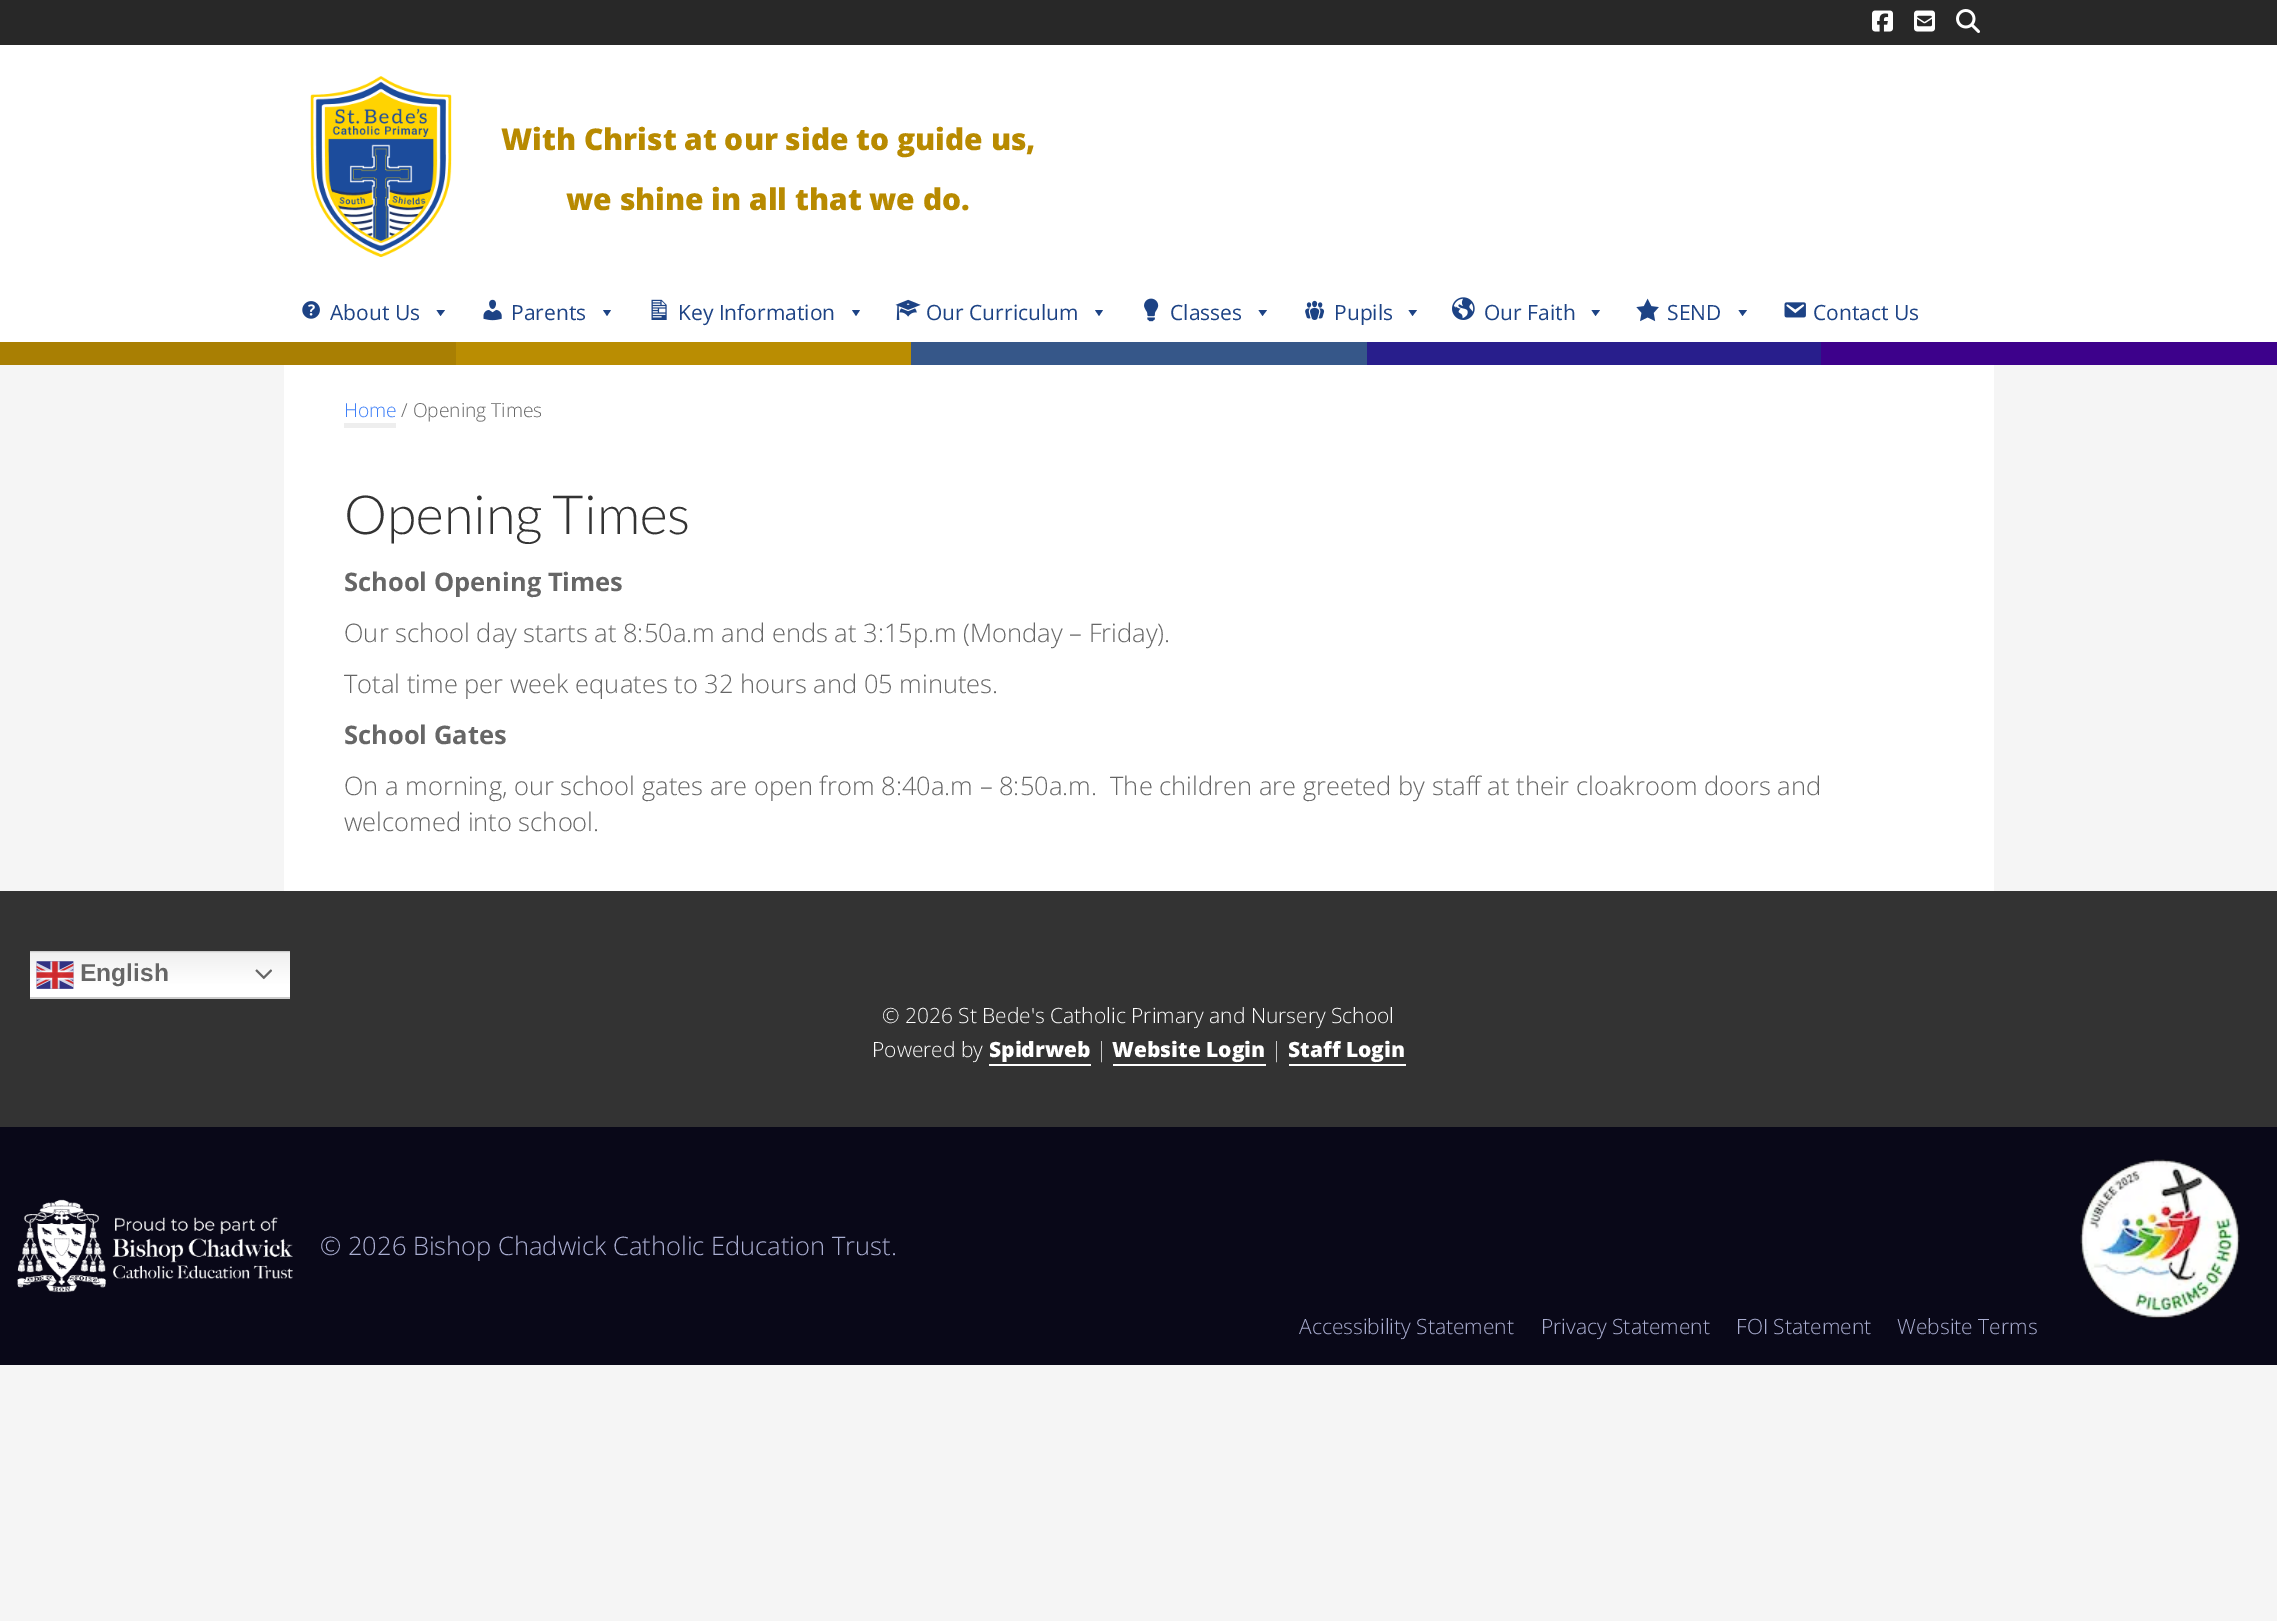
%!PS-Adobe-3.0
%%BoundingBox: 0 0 2277 1621
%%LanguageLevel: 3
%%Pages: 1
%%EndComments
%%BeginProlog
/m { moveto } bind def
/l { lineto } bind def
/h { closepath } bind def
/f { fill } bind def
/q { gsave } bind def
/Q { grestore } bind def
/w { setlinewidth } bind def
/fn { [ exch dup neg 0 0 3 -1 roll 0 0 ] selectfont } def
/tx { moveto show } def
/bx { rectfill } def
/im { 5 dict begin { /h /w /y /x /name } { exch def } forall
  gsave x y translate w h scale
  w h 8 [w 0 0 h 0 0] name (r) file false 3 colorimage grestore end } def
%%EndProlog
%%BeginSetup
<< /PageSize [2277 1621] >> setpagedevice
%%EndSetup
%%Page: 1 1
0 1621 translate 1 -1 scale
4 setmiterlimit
0.961 setgray
0 0 2277 1621 bx
0.157 setgray
0 0 2277 45 bx
(image0.raw) 1872 10 21 22 im
(image1.raw) 1914 10 21 22 im
(image2.raw) 1956 9 24 24 im
1 setgray
0 45 2277 297 bx
(image3.raw) 310 76 142 181 im
/OpenSans-ExtraBold 30 fn
0.722 0.541 0 setrgbcolor
(With Christ at our side to guide us,) 501 150 tx
(we shine in all that we do.) 566 210 tx
(image4.raw) 302 301 18 18 im
/OpenSans-Regular 21 fn
0.114 0.263 0.522 setrgbcolor
(About Us) 330 320 tx
445 310 m 440.5 316 l 436.5 310 l h f
(image5.raw) 483 299 19 22 im
(Parents) 511 320 tx
611 310 m 607 316 l 603 310 l h f
(image6.raw) 651 299 16 21 im
(Key Information) 678 320 tx
860 310 m 856 316 l 852 310 l h f
(image7.raw) 895 299 26 21 im
(Our Curriculum) 926 320 tx
1103 310 m 1099 316 l 1095 310 l h f
(image8.raw) 1144 298 15 24 im
(Classes) 1170 320 tx
1267 310 m 1262.5 316 l 1258.5 310 l h f
(image9.raw) 1305 300 20 20 im
(Pupils) 1334 320 tx
1417 310 m 1412.5 316 l 1408.5 310 l h f
(image10.raw) 1452 297 23 23 im
(Our Faith) 1484 320 tx
1600 310 m 1595.5 316 l 1591.5 310 l h f
(image11.raw) 1636 298 23 24 im
(SEND) 1667 320 tx
1747 310 m 1742.5 316 l 1738.5 310 l h f
(image12.raw) 1784 302 22 16 im
(Contact Us) 1813 320 tx
0.663 0.498 0.012 setrgbcolor
0 342 456 23 bx
0.729 0.553 0.008 setrgbcolor
456 342 455 23 bx
0.212 0.341 0.537 setrgbcolor
911 342 456 23 bx
0.157 0.118 0.549 setrgbcolor
1367 342 454 23 bx
0.239 0.004 0.545 setrgbcolor
1821 342 456 23 bx
1 setgray
284 365 1710 526 bx
/OpenSans-Light 19.25 fn
0.247 0.502 0.973 setrgbcolor
(Home) 344 417 tx
0.933 setgray
344 423 52 5 bx
0.4 setgray
(/ Opening Times) 401 417 tx
/Lato-Light 54 fn
0.2 setgray
(Opening Times) 344 534 tx
/OpenSans-Bold 25.5 fn
0.4 setgray
(School Opening Times) 344 591 tx
/OpenSans-Light 25.5 fn
(Our school day starts at 8:50a.m and ends at 3:15p.m \(Monday – Friday\).) 344 642 tx
(Total time per week equates to 32 hours and 05 minutes.) 344 693 tx
/OpenSans-Bold 25.5 fn
(School Gates) 344 744 tx
/OpenSans-Light 25.5 fn
(On a morning, our school gates are open from 8:40a.m – 8:50a.m.  The children are greeted by staff at their cloakroom doors and) 344 795 tx
(welcomed into school.) 344 831 tx
0.2 setgray
0 891 2277 236 bx
q 30 952 m 290 952 l 290 997 l 30 997 l h clip newpath
<< /ShadingType 2 /ColorSpace /DeviceRGB /Coords [160 951 160 999] /Extend [true true] /Function << /FunctionType 3 /Domain [0 1] /Functions [<< /FunctionType 2 /Domain [0 1] /C0 [0.937 0.937 0.937] /C1 [1 1 1] /N 1 >> << /FunctionType 2 /Domain [0 1] /C0 [1 1 1] /C1 [1 1 1] /N 1 >>] /Bounds [0.7] /Encode [0 1 0 1] >> >> shfill Q
q
30 951 260 48 rectclip
0.8 setgray
2 w
28 951 264 47 rectstroke
Q
(image13.raw) 36 961 38 28 im
/LiberationSans-Bold 24.5 fn
0.4 setgray
(English) 80 981 tx
(image14.raw) 255 969 17 11 im
/OpenSans-Light 21 fn
1 setgray
(© 2026 St Bede's Catholic Primary and Nursery School) 882 1023 tx
(Powered by) 872 1057 tx
/OpenSans-ExtraBold 21 fn
(Spidrweb) 989 1057 tx
989 1064 102 2 bx
/OpenSans-Light 21 fn
(|) 1096 1057 tx
/OpenSans-ExtraBold 21 fn
(Website Login) 1112 1057 tx
1113 1064 153 2 bx
/OpenSans-Light 21 fn
(|) 1271 1057 tx
/OpenSans-ExtraBold 21 fn
(Staff Login) 1288 1057 tx
1289 1064 117 2 bx
0.035 0.031 0.094 setrgbcolor
0 1127 2277 238 bx
(image15.raw) 17 1199 276 94 im
/OpenSans-Light 25.5 fn
0.667 0.682 0.82 setrgbcolor
(© 2026 Bishop Chadwick Catholic Education Trust.) 320 1255 tx
(image16.raw) 2080 1159 160 160 im
/OpenSans-Light 21 fn
(Accessibility Statement) 1299 1334 tx
(Privacy Statement) 1541 1334 tx
(FOI Statement) 1736 1334 tx
(Website Terms) 1897 1334 tx
showpage
%%EOF
